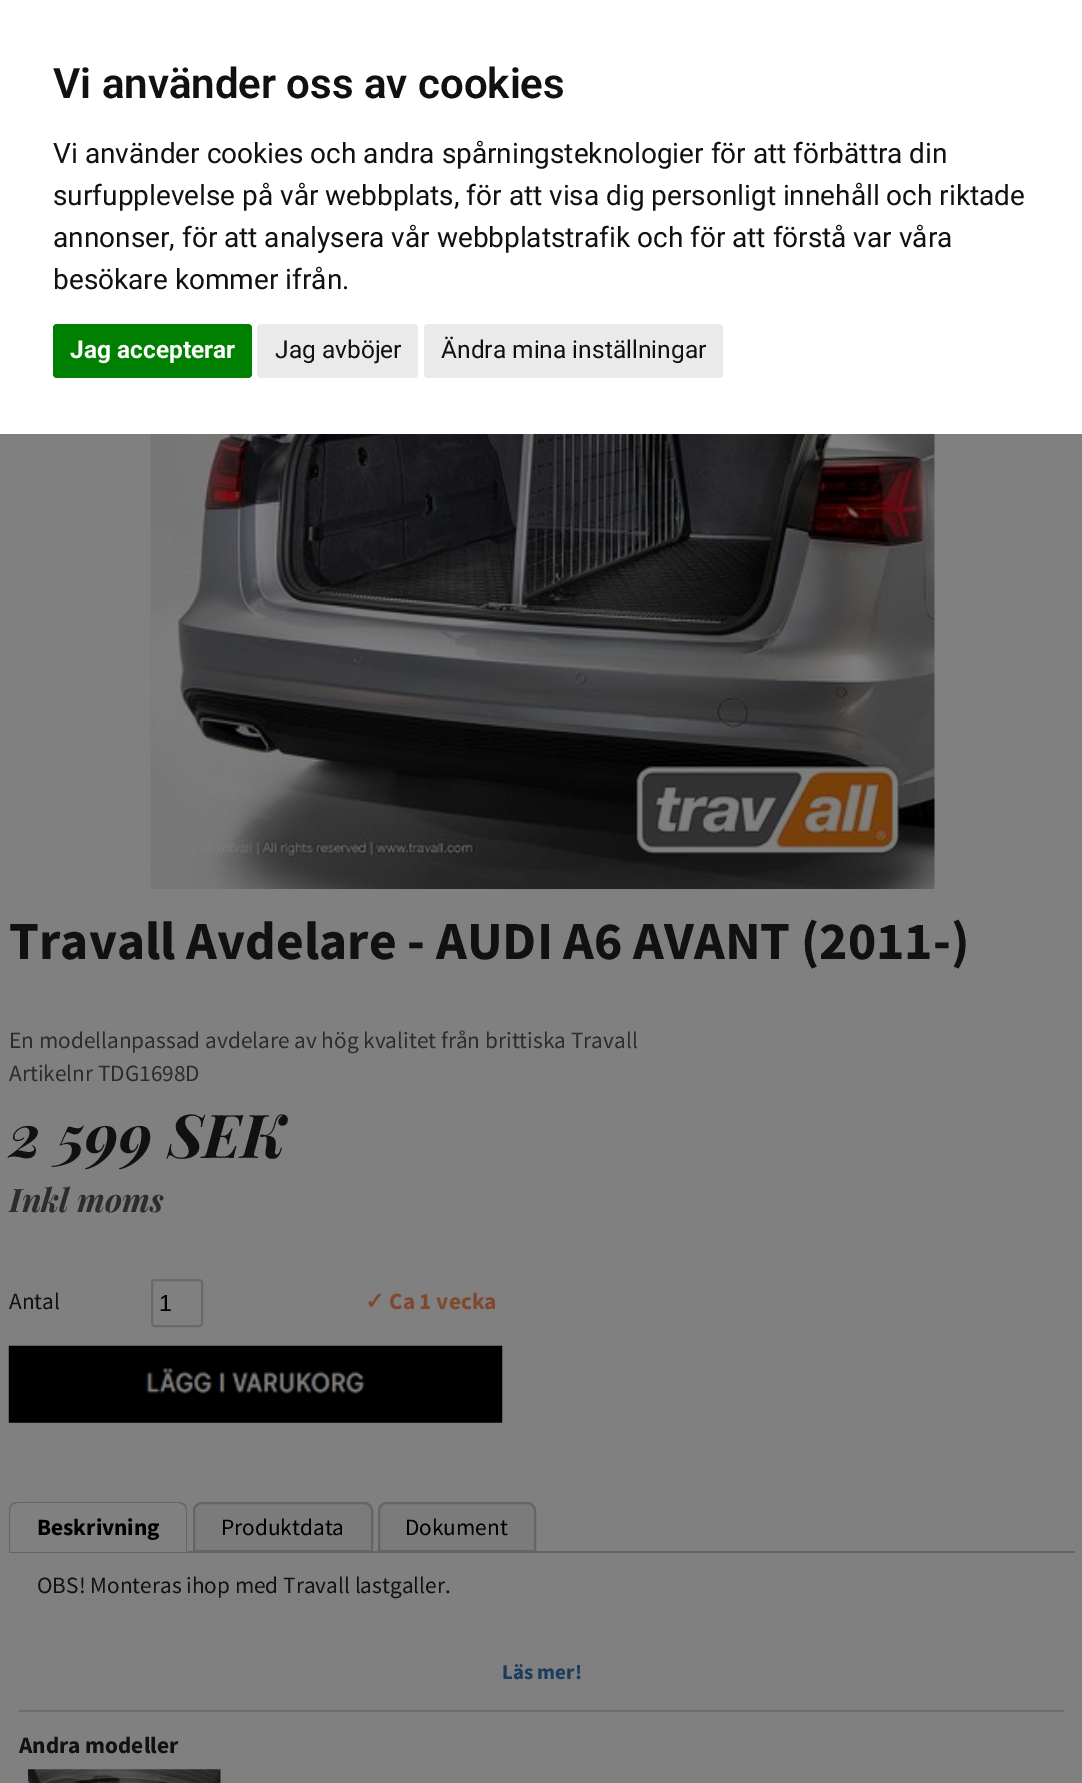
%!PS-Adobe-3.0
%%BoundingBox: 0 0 1082 1783
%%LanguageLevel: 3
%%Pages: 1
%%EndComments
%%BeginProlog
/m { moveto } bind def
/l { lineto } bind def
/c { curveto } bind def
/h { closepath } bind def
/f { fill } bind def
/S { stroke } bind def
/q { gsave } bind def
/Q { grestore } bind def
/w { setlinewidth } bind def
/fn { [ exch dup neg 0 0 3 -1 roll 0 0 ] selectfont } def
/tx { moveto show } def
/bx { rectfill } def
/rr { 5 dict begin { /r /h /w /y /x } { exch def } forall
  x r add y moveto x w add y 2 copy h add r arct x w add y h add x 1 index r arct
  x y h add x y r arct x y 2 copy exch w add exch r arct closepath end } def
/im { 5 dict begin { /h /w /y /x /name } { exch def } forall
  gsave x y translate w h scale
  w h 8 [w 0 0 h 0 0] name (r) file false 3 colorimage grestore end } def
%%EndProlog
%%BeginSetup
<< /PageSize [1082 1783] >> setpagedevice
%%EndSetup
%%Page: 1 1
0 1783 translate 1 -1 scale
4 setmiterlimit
0.502 setgray
0 0 1082 1783 bx
1 setgray
0 0 1082 434 bx
/Roboto-SemiBold 42 fn
0.067 setgray
(Vi använder oss av cookies) 53 98 tx
/Roboto-Regular 28 fn
(Vi använder cookies och andra spårningsteknologier för att förbättra din) 53 163 tx
(surfupplevelse på vår webbplats, för att visa dig personligt innehåll och riktade) 53 205 tx
(annonser, för att analysera vår webbplatstrafik och för att förstå var våra) 53 247 tx
(besökare kommer ifrån.) 53 289 tx
0 0.502 0 setrgbcolor
53 324 199 54 4 rr f
/Roboto-Bold 24.5 fn
1 setgray
(Jag accepterar) 70 358 tx
0.918 setgray
257 324 161 54 4 rr f
/Roboto-Regular 24.5 fn
0.067 setgray
(Jag avböjer) 275 358 tx
0.918 setgray
424 324 299 54 4 rr f
0.067 setgray
(Ändra mina inställningar) 441 358 tx
(image0.raw) 150 434 785 455 im
/SourceSansPro-Bold 53.7 fn
(Travall Avdelare - AUDI A6 AVANT \(2011-\)) 9 959 tx
/SourceSansPro-Regular 23.3 fn
0.173 setgray
(En modellanpassad avdelare av hög kvalitet från brittiska Travall) 9 1048 tx
(Artikelnr TDG1698D) 9 1081 tx
/PlayfairDisplay-BoldItalic 60.5 fn
0.067 setgray
(2 599 SEK) 9 1158 tx
/PlayfairDisplay-BoldItalic 32.5 fn
0.173 setgray
(Inkl moms) 9 1212 tx
/SourceSansPro-Regular 23.3 fn
0.067 setgray
(Antal) 9 1309 tx
0.416 setgray
2 w
152 1280 50 46 3 rr S
/LiberationSans-Regular 23.3 fn
0 setgray
(1) 159 1311 tx
/DejaVuSans-Bold 23.3 fn
0.502 0.282 0.176 setrgbcolor
(✓) 365 1309 tx
/SourceSansPro-Bold 23.3 fn
(Ca 1 vecka) 389 1309 tx
(image1.raw) 8 1345 495 78 im
0.396 setgray
9 1551 1066 2 bx
0.502 setgray
18 1502 m 178 1502 l 183 1502 187 1506 187 1511 c 187 1552 l 9 1552 l 9 1511 l 9 1506 13 1502 18 1502 c h f
0.396 setgray
18 1502 m 15 1502 13 1503 11 1504 c 12 1505 l 14 1504 16 1503 18 1503 c 178 1503 l 180 1503 182 1504 184 1505 c 185 1504 l 183 1503 181 1502 178 1502 c h f
187 1552 m 187 1510 l 187 1508 186 1506 185 1504 c 184 1505 l 185 1506 186 1508 186 1510 c 186 1550 l 185 1550 l h f
0.502 setgray
187 1552 m 185 1550 l 11 1550 l 9 1552 l h f
0.396 setgray
11 1504 m 10 1506 9 1508 9 1510 c 9 1552 l 11 1550 l 10 1550 l 10 1510 l 10 1508 11 1506 12 1505 c h f
0 setgray
(Beskrivning) 37 1535 tx
0.482 setgray
202 1503 m 364 1503 l 368.5 1503 372 1506.5 372 1511 c 372 1551 l 194 1551 l 194 1511 l 194 1506.5 197.5 1503 202 1503 c h q f Q
0.396 setgray
S
/SourceSansPro-Regular 23.3 fn
0 setgray
(Produktdata) 221 1535 tx
0.482 setgray
387 1503 m 527 1503 l 531.5 1503 535 1506.5 535 1511 c 535 1551 l 379 1551 l 379 1511 l 379 1506.5 382.5 1503 387 1503 c h q f Q
0.396 setgray
S
0 setgray
(Dokument) 405 1535 tx
0.067 setgray
(OBS! Monteras ihop med Travall lastgaller.) 37 1593 tx
/SourceSansPro-Bold 21 fn
0.102 0.239 0.361 setrgbcolor
(Läs mer!) 502 1679 tx
0.427 setgray
19 1710 1045 2 bx
/SourceSansPro-Bold 23.3 fn
0.067 setgray
(Andra modeller) 19 1753 tx
(image2.raw) 28 1769 193 14 im
showpage
%%EOF
